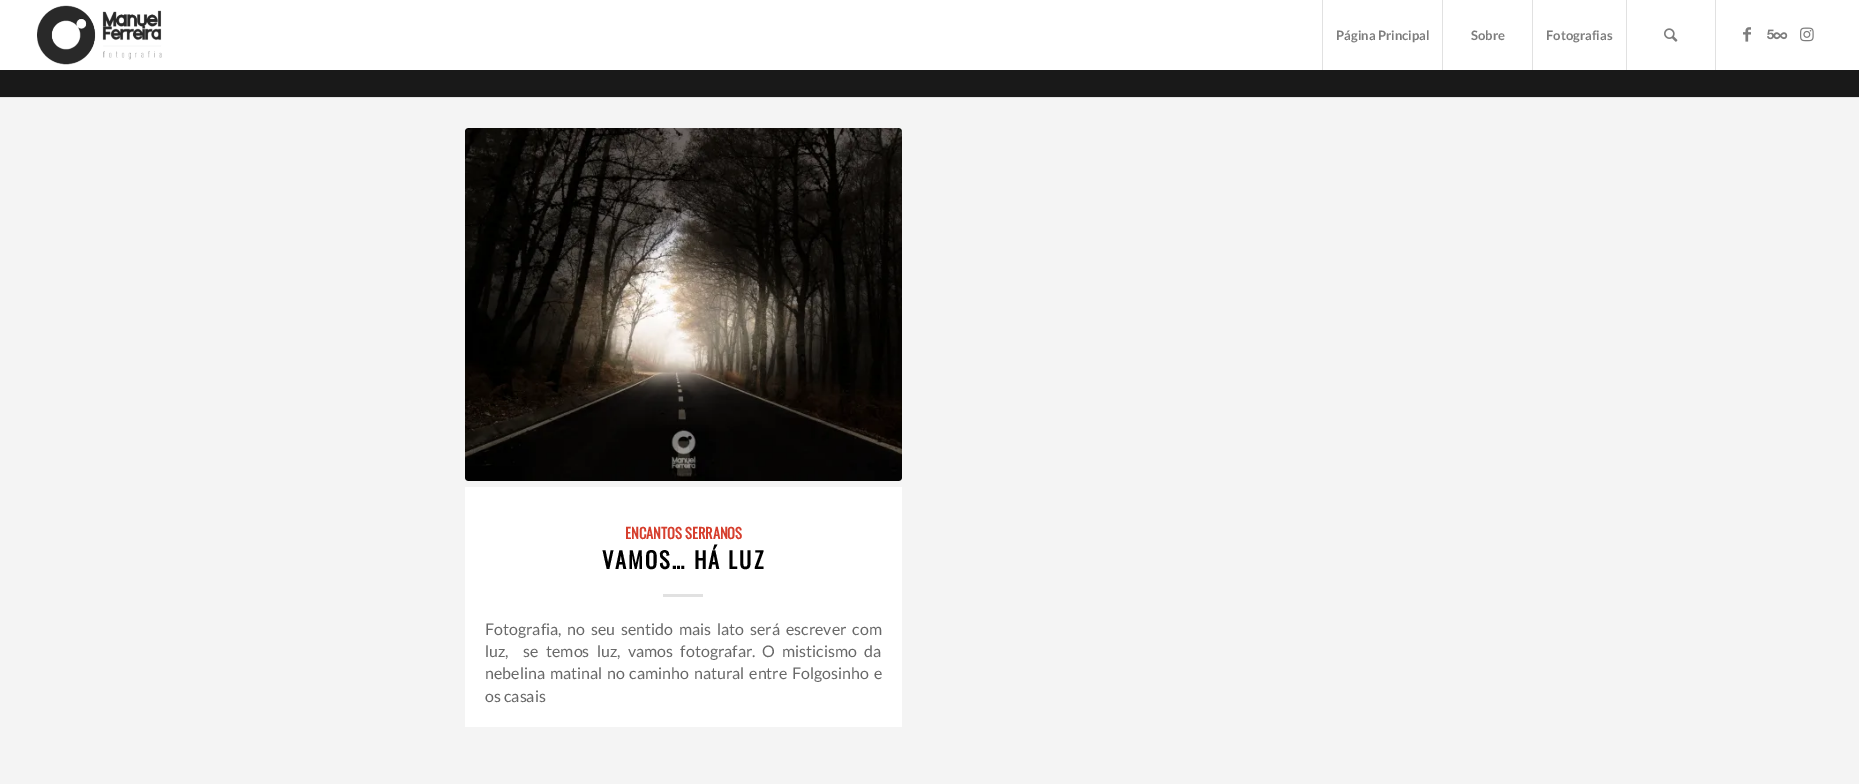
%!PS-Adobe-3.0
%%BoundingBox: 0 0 1859 784
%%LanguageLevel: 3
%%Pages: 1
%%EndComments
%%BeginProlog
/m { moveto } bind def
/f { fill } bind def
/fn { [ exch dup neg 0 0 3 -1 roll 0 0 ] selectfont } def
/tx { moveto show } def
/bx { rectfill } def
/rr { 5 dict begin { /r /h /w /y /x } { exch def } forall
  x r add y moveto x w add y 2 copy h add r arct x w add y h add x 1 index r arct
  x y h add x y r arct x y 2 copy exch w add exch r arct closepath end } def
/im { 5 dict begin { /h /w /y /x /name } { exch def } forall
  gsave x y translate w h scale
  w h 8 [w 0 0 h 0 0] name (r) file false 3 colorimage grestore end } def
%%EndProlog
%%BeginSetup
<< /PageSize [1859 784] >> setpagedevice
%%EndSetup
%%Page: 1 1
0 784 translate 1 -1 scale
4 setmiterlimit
0.098 setgray
0 0 1859 784 bx
1 setgray
0 0 1859 70 bx
(image0.raw) 37 5 125 60 im
0.882 setgray
1322 0 1 70 bx
/Lato-Bold 13 fn
0.49 setgray
(Página Principal) 1336 40 tx
0.882 setgray
1442 0 1 70 bx
0.49 setgray
(Sobre) 1471 40 tx
0.882 setgray
1532 0 1 70 bx
0.49 setgray
(Fotografias) 1546 40 tx
0.882 setgray
1715 0 1 70 bx
1626 0 1 70 bx
(image1.raw) 1664 28 14 14 im
(image2.raw) 1743 27 8 15 im
(image3.raw) 1767 29 21 11 im
(image4.raw) 1800 27 14 15 im
0.957 setgray
0 98 1859 686 bx
0.882 setgray
0 97 1859 1 bx
0.973 setgray
465 128 437 353 3 rr f
(image5.raw) 465 128 437 353 im
1 setgray
465 487 437 240 bx
/Oswald-Bold 14.5 fn
0.839 0.243 0.176 setrgbcolor
(ENCANTOS SERRANOS) 625 539 tx
/Oswald-Bold 22.5 fn
0 setgray
602 569 m 2 0 (VAMOS… HÁ LUZ) ashow
0.882 setgray
663 594 40 3 bx
/Lato-Regular 16 fn
0.412 setgray
485 635 m 2.75 0 32 (Fotografia, no seu sentido mais lato será escrever com) widthshow
485 657 m 4.25 0 32 (luz,  se temos luz, vamos fotografar.) widthshow
762 657 m 4.25 0 32 (O misticismo da) widthshow
485 679 m 1.75 0 32 (nebelina matinal no caminho natural entre Folgosinho e) widthshow
(os casais) 485 702 tx
showpage
%%EOF
